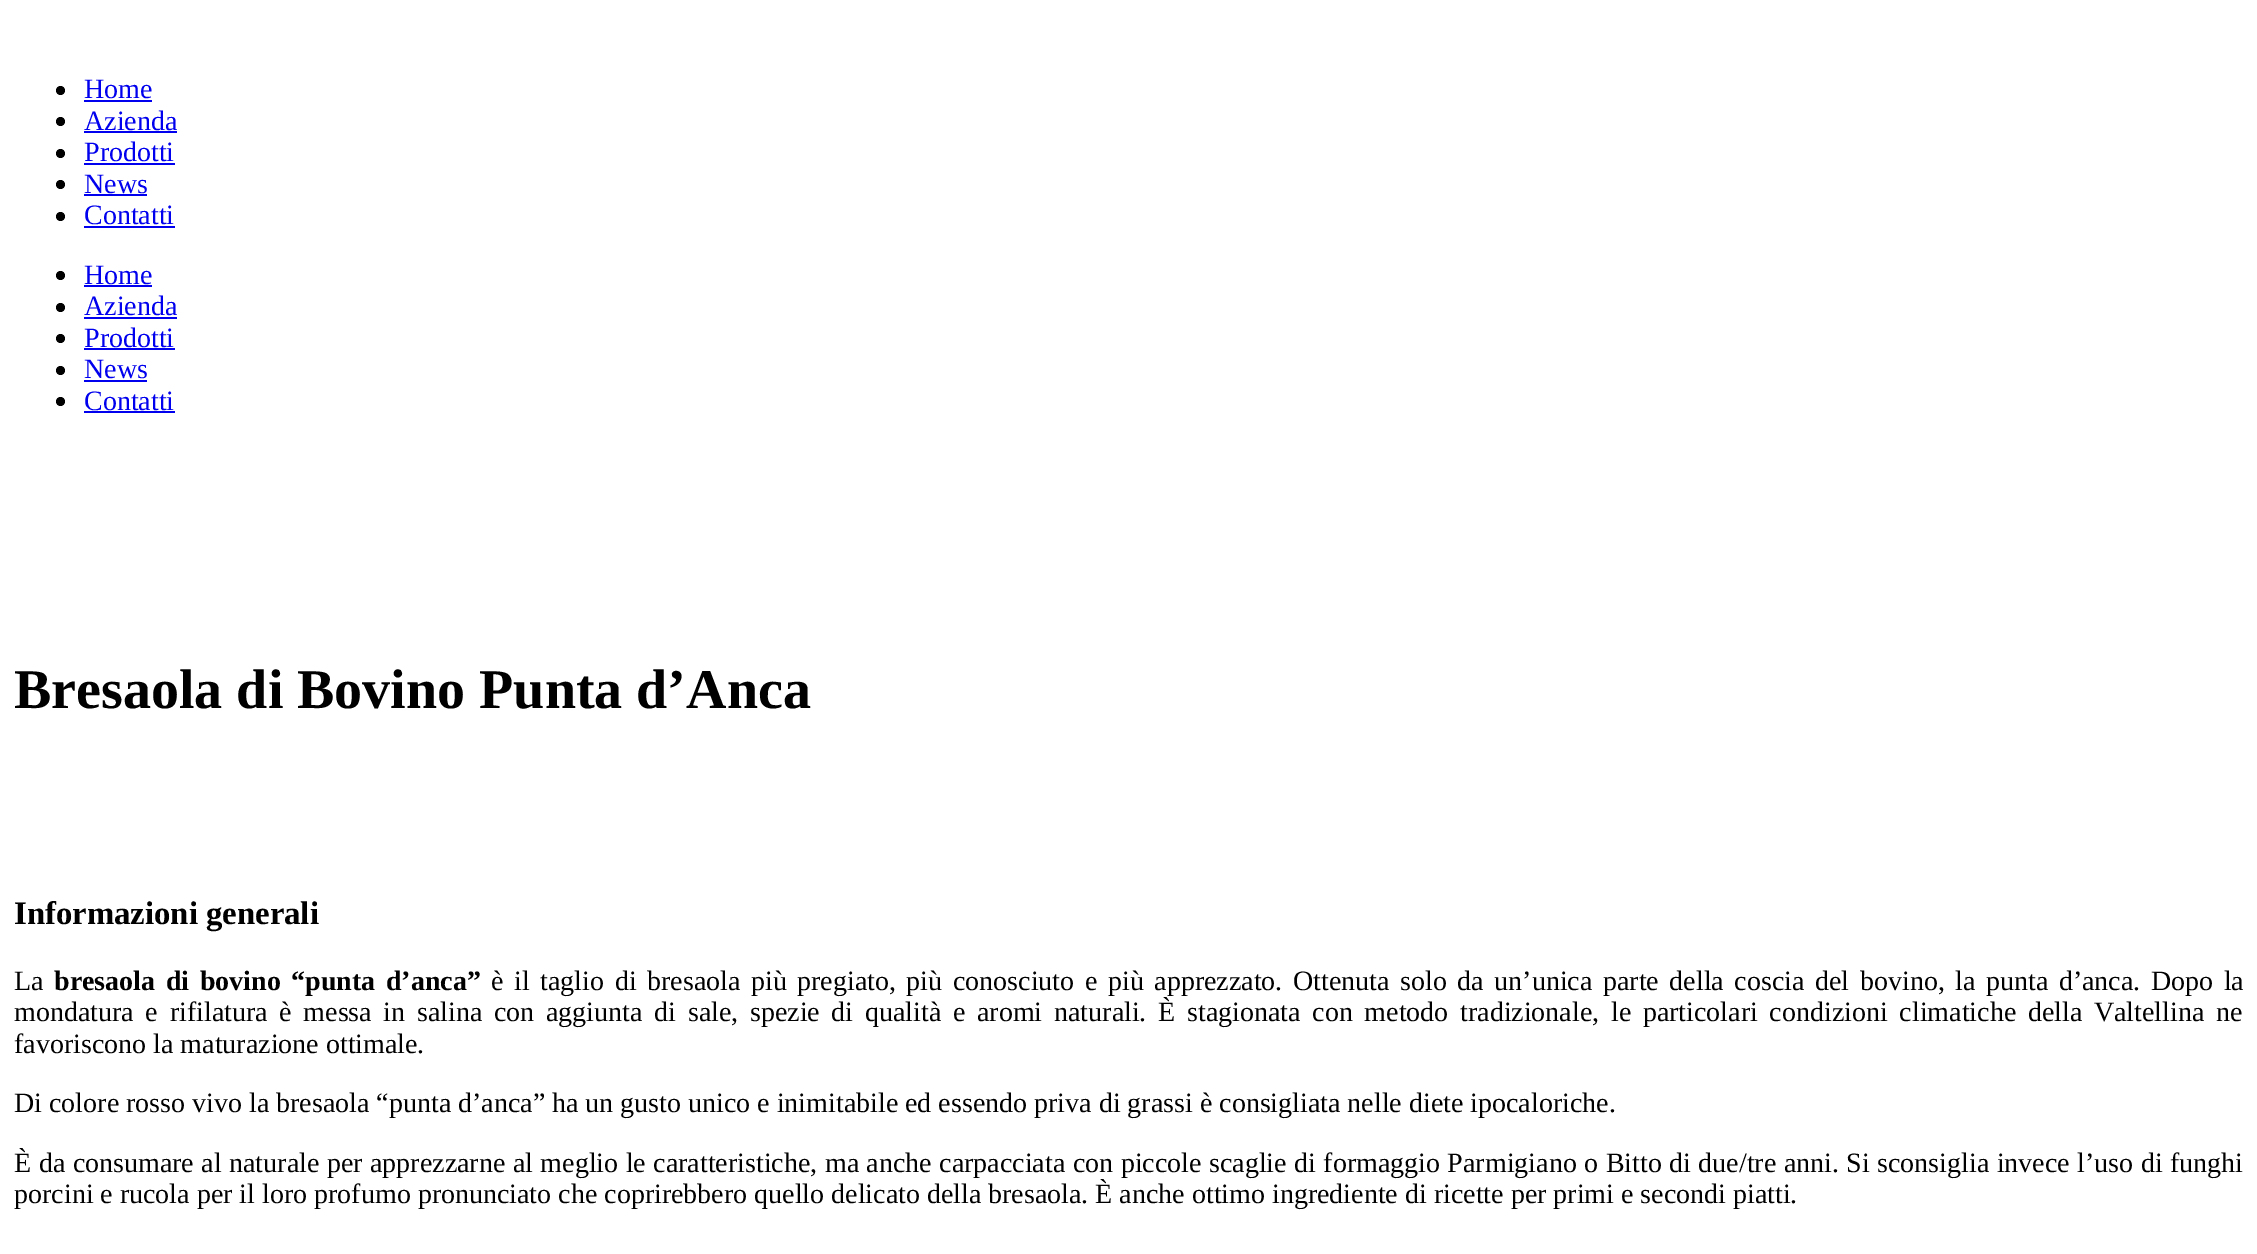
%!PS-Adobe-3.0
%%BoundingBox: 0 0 2257 1254
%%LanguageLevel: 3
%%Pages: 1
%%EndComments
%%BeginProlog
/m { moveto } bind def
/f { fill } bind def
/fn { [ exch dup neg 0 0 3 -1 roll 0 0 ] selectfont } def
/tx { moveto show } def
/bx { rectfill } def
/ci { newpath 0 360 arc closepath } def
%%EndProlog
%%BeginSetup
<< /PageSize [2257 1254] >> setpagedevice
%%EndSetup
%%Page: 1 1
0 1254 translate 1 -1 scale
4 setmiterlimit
1 setgray
0 0 2257 1254 bx
0 setgray
60.5 90.5 4.5 ci f
/LiberationSerif-Regular 28 fn
0 0 0.933 setrgbcolor
(Home) 84 98 tx
84 100 68 2 bx
0 setgray
60.5 121.5 4.5 ci f
0 0 0.933 setrgbcolor
(Azienda) 84 130 tx
84 131 93 2 bx
0 setgray
60.5 153.5 4.5 ci f
0 0 0.933 setrgbcolor
(Prodotti) 84 161 tx
84 163 91 2 bx
0 setgray
60.5 184.5 4.5 ci f
0 0 0.933 setrgbcolor
(News) 84 193 tx
84 194 63 2 bx
0 setgray
60.5 216.5 4.5 ci f
0 0 0.933 setrgbcolor
(Contatti) 84 224 tx
84 226 91 2 bx
0 setgray
60.5 275.5 4.5 ci f
0 0 0.933 setrgbcolor
(Home) 84 284 tx
84 285 68 2 bx
0 setgray
60.5 307.5 4.5 ci f
0 0 0.933 setrgbcolor
(Azienda) 84 315 tx
84 317 93 2 bx
0 setgray
60.5 338.5 4.5 ci f
0 0 0.933 setrgbcolor
(Prodotti) 84 347 tx
84 348 91 2 bx
0 setgray
60.5 370.5 4.5 ci f
0 0 0.933 setrgbcolor
(News) 84 378 tx
84 380 63 2 bx
0 setgray
60.5 401.5 4.5 ci f
0 0 0.933 setrgbcolor
(Contatti) 84 410 tx
84 411 91 2 bx
/LiberationSerif-Bold 56 fn
0 setgray
(Bresaola di Bovino Punta d’Anca) 14 708 tx
/LiberationSerif-Bold 32.75 fn
(Informazioni generali) 14 924 tx
/LiberationSerif-Regular 28 fn
(La) 14 990 tx
/LiberationSerif-Bold 28 fn
54 990 m 3.6 0 32 (bresaola di bovino “punta d’anca”) widthshow
/LiberationSerif-Regular 28 fn
491 990 m 3.6 0 32 (è il taglio di bresaola più pregiato, più conosciuto e più apprezzato. Ottenuta solo da un’unica parte della coscia del bovino, la punta d’anca. Dopo la) widthshow
14 1021 m 4.7 0 32 (mondatura e rifilatura è messa in salina con aggiunta di sale, spezie di qualità e aromi naturali. È stagionata con metodo tradizionale, le particolari condizioni climatiche della Valtellina ne) widthshow
(favoriscono la maturazione ottimale.) 14 1053 tx
(Di colore rosso vivo la bresaola “punta d’anca” ha un gusto unico e inimitabile ed essendo priva di grassi è consigliata nelle diete ipocaloriche.) 14 1112 tx
14 1172 m 0.5 0 32 (È da consumare al naturale per apprezzarne al meglio le caratteristiche, ma anche carpacciata con piccole scaglie di formaggio Parmigiano o Bitto di due/tre anni. Si sconsiglia invece l’uso di funghi) widthshow
(porcini e rucola per il loro profumo pronunciato che coprirebbero quello delicato della bresaola. È anche ottimo ingrediente di ricette per primi e secondi piatti.) 14 1203 tx
showpage
%%EOF
